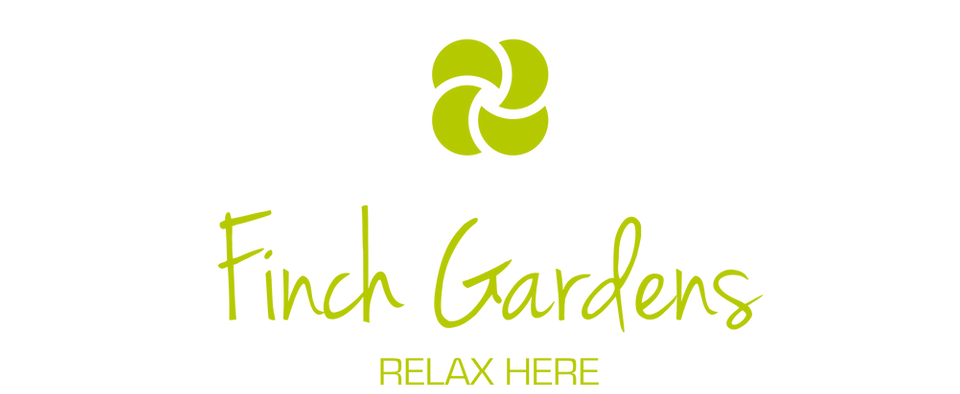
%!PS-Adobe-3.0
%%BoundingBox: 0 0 960 394
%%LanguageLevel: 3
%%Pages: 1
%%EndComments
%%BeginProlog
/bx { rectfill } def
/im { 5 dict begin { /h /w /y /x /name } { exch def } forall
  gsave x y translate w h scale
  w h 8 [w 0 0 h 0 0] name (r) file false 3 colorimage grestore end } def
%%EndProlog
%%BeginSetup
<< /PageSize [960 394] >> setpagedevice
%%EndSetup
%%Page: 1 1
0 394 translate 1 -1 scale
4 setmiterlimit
1 setgray
0 0 960 394 bx
(image0.raw) 216 36 549 351 im
showpage
%%EOF
